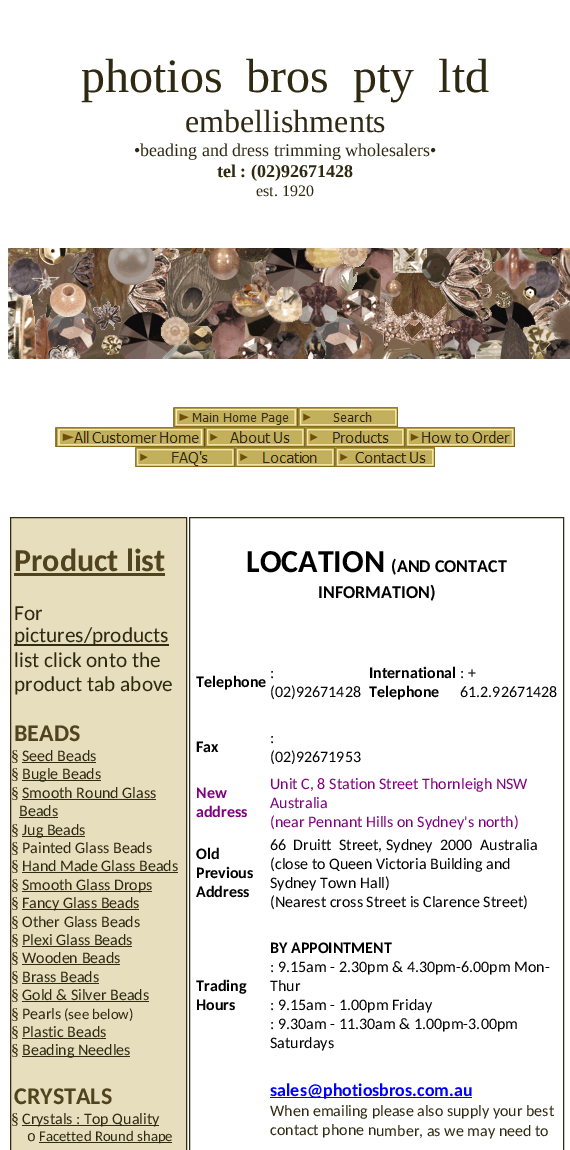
%!PS-Adobe-3.0
%%BoundingBox: 0 0 570 1150
%%LanguageLevel: 3
%%Pages: 1
%%EndComments
%%BeginProlog
/m { moveto } bind def
/l { lineto } bind def
/h { closepath } bind def
/f { fill } bind def
/S { stroke } bind def
/q { gsave } bind def
/Q { grestore } bind def
/fn { [ exch dup neg 0 0 3 -1 roll 0 0 ] selectfont } def
/tx { moveto show } def
/bx { rectfill } def
/im { 5 dict begin { /h /w /y /x /name } { exch def } forall
  gsave x y translate w h scale
  w h 8 [w 0 0 h 0 0] name (r) file false 3 colorimage grestore end } def
%%EndProlog
%%BeginSetup
<< /PageSize [570 1150] >> setpagedevice
%%EndSetup
%%Page: 1 1
0 1150 translate 1 -1 scale
4 setmiterlimit
1 setgray
0 0 570 1150 bx
/LiberationSerif-Regular 48 fn
0.188 0.161 0.071 setrgbcolor
(photios  bros  pty  ltd) 81 92 tx
/LiberationSerif-Regular 32 fn
(embellishments) 185 132 tx
/LiberationSerif-Regular 18 fn
(•beading and dress trimming wholesalers•) 134 156 tx
/LiberationSerif-Bold 18 fn
(tel : \(02\)92671428) 217 177 tx
/LiberationSerif-Regular 16 fn
(est. 1920) 256 196 tx
(image0.raw) 8 248 562 111 im
(image1.raw) 173 407 125 20 im
(image2.raw) 298 407 100 20 im
(image3.raw) 55 427 150 20 im
(image4.raw) 205 427 100 20 im
(image5.raw) 305 427 100 20 im
(image6.raw) 405 427 110 20 im
(image7.raw) 135 447 100 20 im
(image8.raw) 235 447 100 20 im
(image9.raw) 335 447 100 20 im
0.906 0.871 0.745 setrgbcolor
10.5 517.5 m 186.5 517.5 l 186.5 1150.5 l 10.5 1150.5 l h q f Q
0.2 0.173 0.075 setrgbcolor
S
/Carlito-Bold 32 fn
0.31 0.267 0.118 setrgbcolor
(Product list) 14 571 tx
14 573 151 3 bx
/Carlito-Regular 21.25 fn
0.188 0.161 0.071 setrgbcolor
(For) 14 620 tx
0.2 0.173 0.075 setrgbcolor
14 644 155 2 bx
0.188 0.161 0.071 setrgbcolor
(pictures/products) 14 642 tx
(list click onto the) 14 667 tx
(product tab above) 14 691 tx
/Carlito-Bold 24 fn
0.31 0.267 0.118 setrgbcolor
(BEADS) 14 741 tx
/LiberationSerif-Regular 16 fn
0.188 0.161 0.071 setrgbcolor
(§) 11 761 tx
/Carlito-Regular 16 fn
(Seed Beads) 22 761 tx
0.2 0.173 0.075 setrgbcolor
22 762 74 1 bx
/LiberationSerif-Regular 16 fn
0.188 0.161 0.071 setrgbcolor
(§) 11 779 tx
0.2 0.173 0.075 setrgbcolor
22 780 79 1 bx
/Carlito-Regular 16 fn
0.188 0.161 0.071 setrgbcolor
(Bugle Beads) 22 779 tx
/LiberationSerif-Regular 16 fn
(§) 11 798 tx
/Carlito-Regular 16 fn
(Smooth Round Glass) 22 798 tx
0.2 0.173 0.075 setrgbcolor
22 799 134 1 bx
0.188 0.161 0.071 setrgbcolor
(Beads) 19 816 tx
0.2 0.173 0.075 setrgbcolor
19 817 39 1 bx
/LiberationSerif-Regular 16 fn
0.188 0.161 0.071 setrgbcolor
(§) 11 835 tx
0.2 0.173 0.075 setrgbcolor
22 836 63 1 bx
/Carlito-Regular 16 fn
0.188 0.161 0.071 setrgbcolor
(Jug Beads) 22 835 tx
/LiberationSerif-Regular 16 fn
(§) 11 853 tx
/Carlito-Regular 16 fn
(Painted Glass Beads) 22 853 tx
/LiberationSerif-Regular 16 fn
(§) 11 871 tx
/Carlito-Regular 16 fn
(Hand Made Glass Beads) 22 871 tx
0.2 0.173 0.075 setrgbcolor
22 872 156 1 bx
/LiberationSerif-Regular 16 fn
0.188 0.161 0.071 setrgbcolor
(§) 11 890 tx
0.2 0.173 0.075 setrgbcolor
22 891 130 1 bx
/Carlito-Regular 16 fn
0.188 0.161 0.071 setrgbcolor
(Smooth Glass Drops) 22 890 tx
/LiberationSerif-Regular 16 fn
(§) 11 908 tx
0.2 0.173 0.075 setrgbcolor
22 909 117 1 bx
/Carlito-Regular 16 fn
0.188 0.161 0.071 setrgbcolor
(Fancy Glass Beads) 22 908 tx
/LiberationSerif-Regular 16 fn
(§) 11 927 tx
/Carlito-Regular 16 fn
(Other Glass Beads) 22 927 tx
/LiberationSerif-Regular 16 fn
(§) 11 945 tx
/Carlito-Regular 16 fn
(Plexi Glass Beads) 22 945 tx
0.2 0.173 0.075 setrgbcolor
22 946 110 1 bx
/LiberationSerif-Regular 16 fn
0.188 0.161 0.071 setrgbcolor
(§) 11 963 tx
/Carlito-Regular 16 fn
(Wooden Beads) 22 963 tx
0.2 0.173 0.075 setrgbcolor
22 964 98 1 bx
/LiberationSerif-Regular 16 fn
0.188 0.161 0.071 setrgbcolor
(§) 11 982 tx
/Carlito-Regular 16 fn
(Brass Beads) 22 982 tx
0.2 0.173 0.075 setrgbcolor
22 983 77 1 bx
/LiberationSerif-Regular 16 fn
0.188 0.161 0.071 setrgbcolor
(§) 11 1000 tx
/Carlito-Regular 16 fn
(Gold & Silver Beads) 22 1000 tx
0.2 0.173 0.075 setrgbcolor
22 1001 127 1 bx
/LiberationSerif-Regular 16 fn
0.188 0.161 0.071 setrgbcolor
(§) 11 1019 tx
/Carlito-Regular 16 fn
(Pearls) 22 1019 tx
/Carlito-Regular 14.75 fn
(\(see below\)) 64 1019 tx
/LiberationSerif-Regular 16 fn
(§) 11 1037 tx
/Carlito-Regular 16 fn
(Plastic Beads) 22 1037 tx
0.2 0.173 0.075 setrgbcolor
22 1038 84 1 bx
/LiberationSerif-Regular 16 fn
0.188 0.161 0.071 setrgbcolor
(§) 11 1055 tx
0.2 0.173 0.075 setrgbcolor
22 1056 108 1 bx
/Carlito-Regular 16 fn
0.188 0.161 0.071 setrgbcolor
(Beading Needles) 22 1055 tx
/Carlito-Bold 24 fn
0.31 0.267 0.118 setrgbcolor
(CRYSTALS) 14 1104 tx
/LiberationSerif-Regular 16 fn
0.188 0.161 0.071 setrgbcolor
(§) 11 1124 tx
0.2 0.173 0.075 setrgbcolor
22 1125 137 1 bx
/Carlito-Regular 16 fn
0.188 0.161 0.071 setrgbcolor
(Crystals : Top Quality) 22 1124 tx
/LiberationMono-Regular 14.75 fn
(o) 27 1141 tx
0.2 0.173 0.075 setrgbcolor
39 1142 133 1 bx
/Carlito-Regular 14.75 fn
0.188 0.161 0.071 setrgbcolor
(Facetted Round shape) 39 1141 tx
0.2 0.173 0.075 setrgbcolor
189.5 517.5 374 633 rectstroke
/Carlito-Bold 32 fn
0 setgray
(LOCATION) 246 572 tx
/Carlito-Bold 18 fn
(\(AND CONTACT) 391 572 tx
(INFORMATION\)) 318 598 tx
/Carlito-Bold 16 fn
(Telephone) 196 687 tx
/Carlito-Regular 16 fn
(:) 270 678 tx
(\(02\)92671428) 270 697 tx
/Carlito-Bold 16 fn
(International) 369 678 tx
(Telephone) 369 697 tx
/Carlito-Regular 16 fn
(: +) 460 678 tx
(61.2.92671428) 460 697 tx
/Carlito-Bold 16 fn
(Fax) 196 752 tx
/Carlito-Regular 16 fn
(:) 270 743 tx
(\(02\)92671953) 270 762 tx
/Carlito-Bold 16 fn
0.502 0 0.502 setrgbcolor
(New) 196 798 tx
(address) 196 817 tx
/Carlito-Regular 16 fn
(Unit C, 8 Station Street Thornleigh NSW) 270 789 tx
(Australia) 270 808 tx
(\(near Pennant Hills on Sydney's north\)) 270 827 tx
/Carlito-Bold 16 fn
0 setgray
(Old) 196 859 tx
(Previous) 196 878 tx
(Address) 196 897 tx
/Carlito-Regular 16 fn
(66  Druitt  Street, Sydney  2000) 270 850 tx
(Australia) 480 850 tx
(\(close to Queen Victoria Building and) 270 869 tx
(Sydney Town Hall\)) 270 888 tx
(\(Nearest cross Street is Clarence Street\)) 270 907 tx
/Carlito-Bold 16 fn
(Trading) 196 991 tx
(Hours) 196 1010 tx
(BY APPOINTMENT) 270 953 tx
/Carlito-Regular 16 fn
(: 9.15am - 2.30pm & 4.30pm-6.00pm Mon-) 270 972 tx
(Thur) 270 991 tx
(: 9.15am - 1.00pm Friday) 270 1010 tx
(: 9.30am - 11.30am & 1.00pm-3.00pm) 270 1029 tx
(Saturdays) 270 1048 tx
0 0 1 setrgbcolor
270 1097 202 1 bx
/Carlito-Bold 18 fn
(sales@photiosbros.com.au) 270 1096 tx
/Carlito-Regular 16 fn
0.188 0.161 0.071 setrgbcolor
(When emailing please also supply your best) 270 1116 tx
(contact phone n) 270 1135 tx
(umber, as we may need to) 376 1136 tx
showpage
%%EOF
